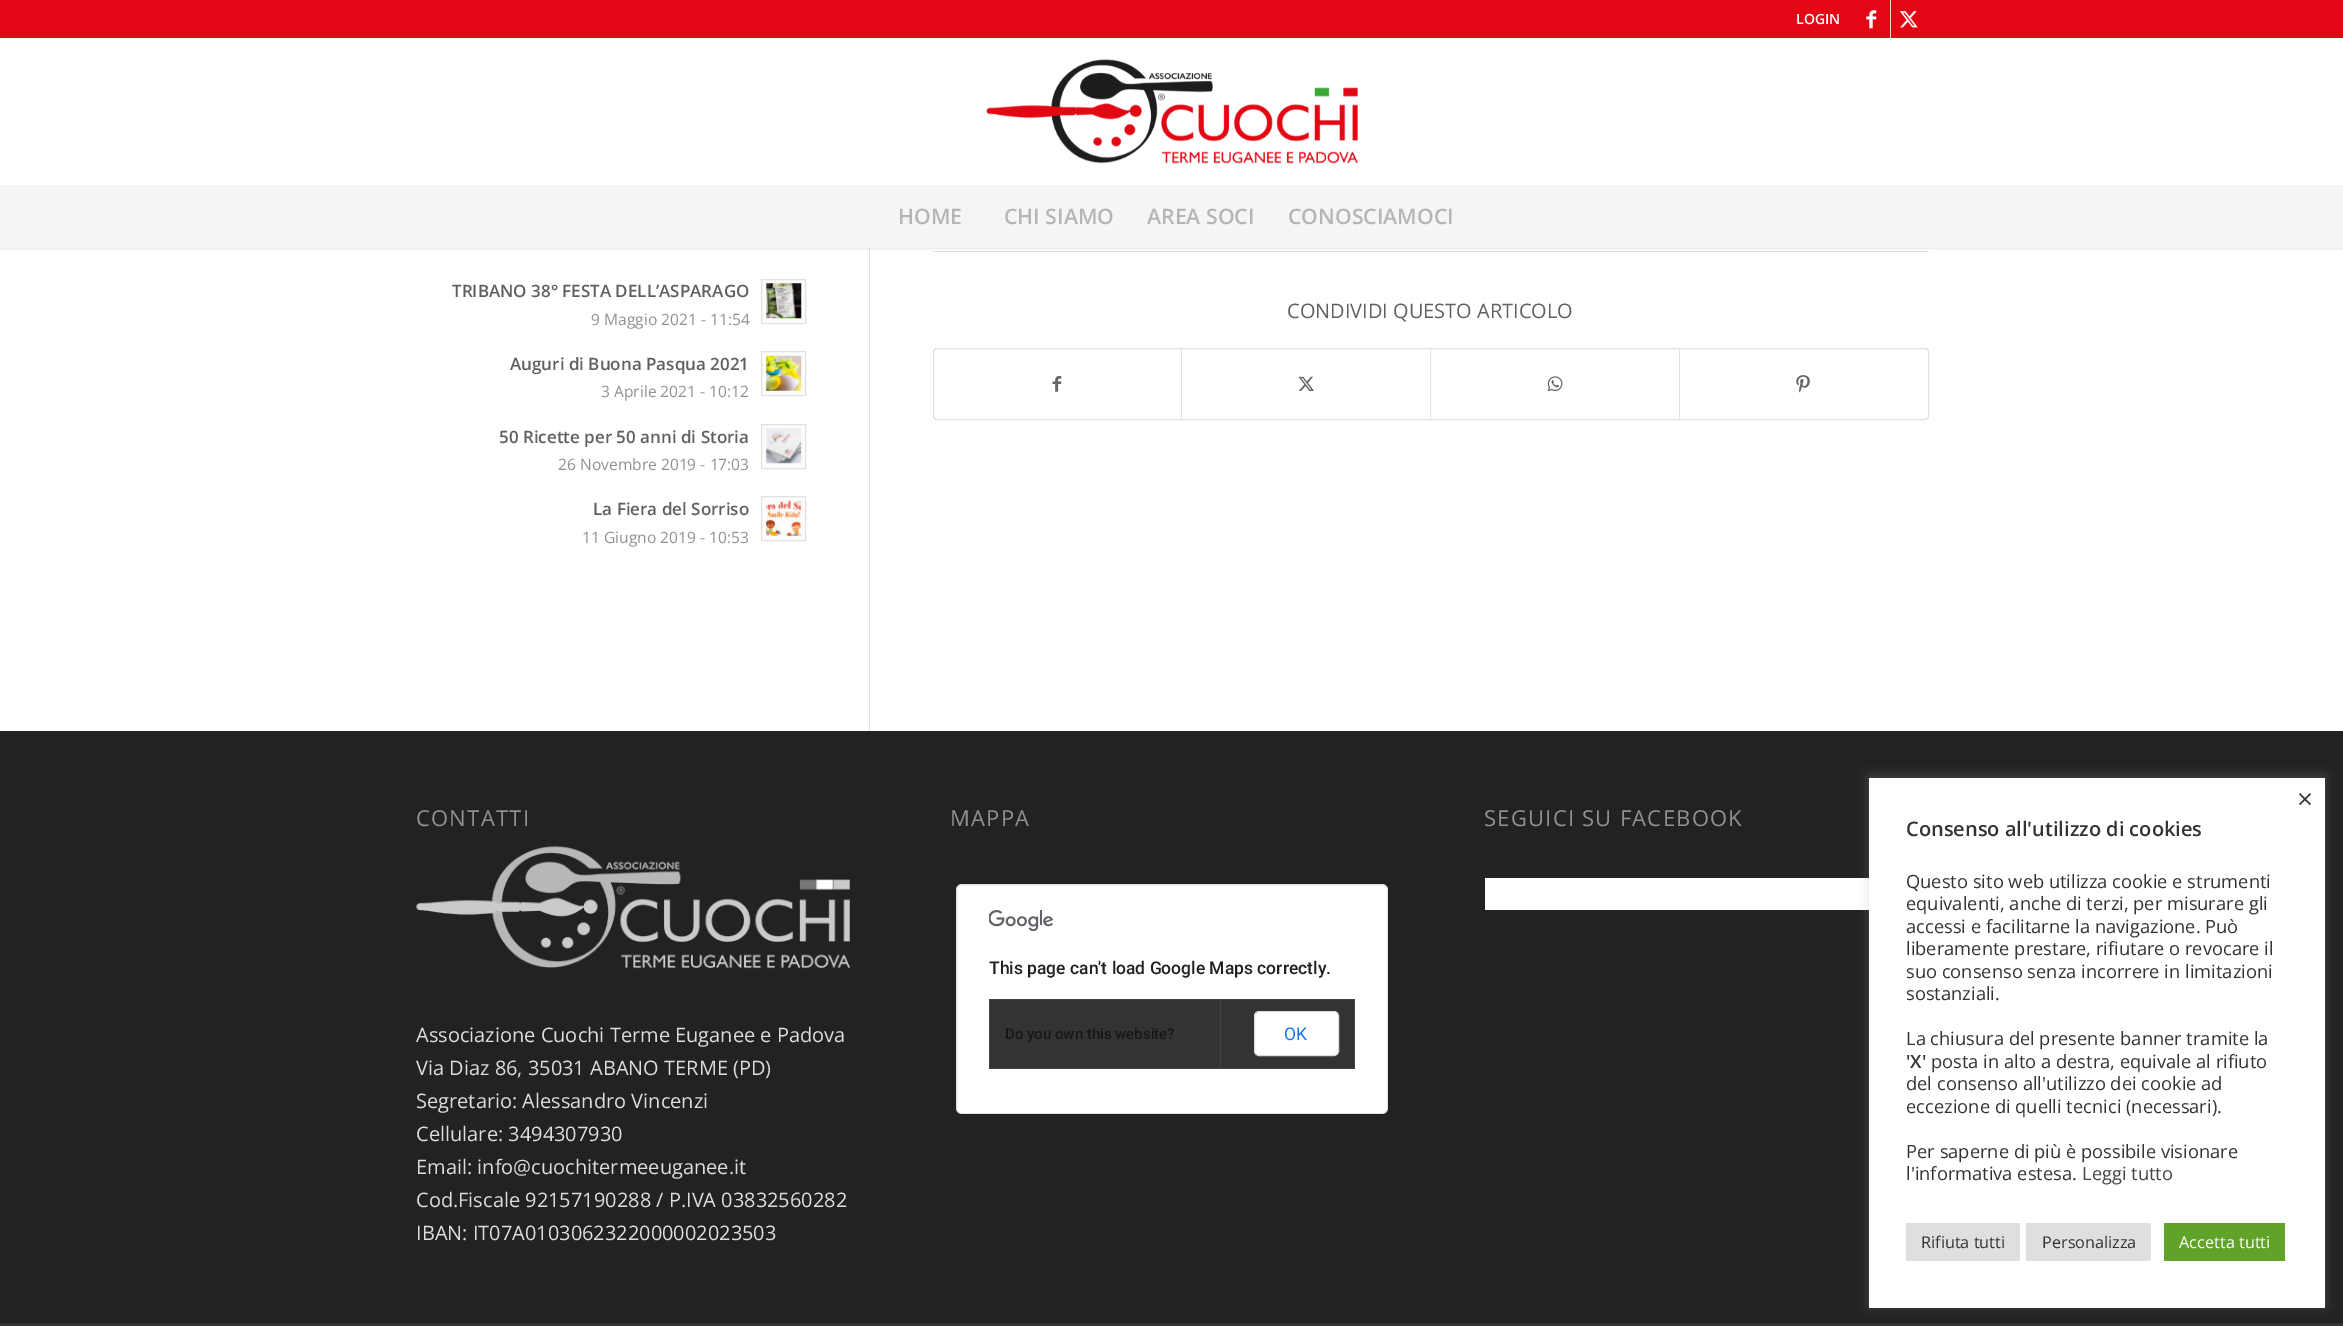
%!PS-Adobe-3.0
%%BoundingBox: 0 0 2343 1326
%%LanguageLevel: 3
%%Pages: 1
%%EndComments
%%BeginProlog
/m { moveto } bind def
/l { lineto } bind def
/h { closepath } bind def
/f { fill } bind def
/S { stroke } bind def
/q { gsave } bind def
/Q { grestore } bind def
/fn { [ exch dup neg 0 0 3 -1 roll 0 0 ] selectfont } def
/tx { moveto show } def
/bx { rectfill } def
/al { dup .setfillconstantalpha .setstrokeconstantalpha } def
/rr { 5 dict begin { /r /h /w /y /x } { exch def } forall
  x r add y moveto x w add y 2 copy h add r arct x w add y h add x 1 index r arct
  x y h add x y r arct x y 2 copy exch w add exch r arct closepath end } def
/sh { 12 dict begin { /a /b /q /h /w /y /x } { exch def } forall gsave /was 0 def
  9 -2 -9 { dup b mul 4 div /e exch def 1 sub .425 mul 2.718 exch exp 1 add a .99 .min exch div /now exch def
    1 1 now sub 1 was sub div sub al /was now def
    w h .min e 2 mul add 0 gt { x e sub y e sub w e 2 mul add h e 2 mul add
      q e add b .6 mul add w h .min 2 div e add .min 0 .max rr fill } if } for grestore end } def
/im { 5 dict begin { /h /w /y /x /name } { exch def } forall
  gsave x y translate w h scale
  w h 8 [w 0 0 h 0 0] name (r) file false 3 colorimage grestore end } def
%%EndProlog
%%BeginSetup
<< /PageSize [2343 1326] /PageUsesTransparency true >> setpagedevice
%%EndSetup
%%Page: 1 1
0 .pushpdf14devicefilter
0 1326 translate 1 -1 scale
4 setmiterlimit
1 setgray
0 0 2343 1326 bx
0.882 setgray
869 248 1 483 bx
933 251 996 1 bx
0 setgray
-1 -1 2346 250 0 1 0.1 sh
0.89 0.024 0.082 setrgbcolor
0 0 2343 38 bx
/OpenSans-SemiBold 14 fn
1 setgray
(LOGIN) 1796 24 tx
0.882 setgray
1890 0 1 38 bx
(image0.raw) 1866 10 11 19 im
(image1.raw) 1899 11 19 17 im
1 setgray
0 38 2343 147 bx
(image2.raw) 986 59 372 105 im
0.961 setgray
0 185 2343 63 bx
0.949 setgray
874 185 1 63 bx
/OpenSans-SemiBold 21.25 fn
0.71 setgray
(HOME) 898 224 tx
0.949 setgray
986 185 1 63 bx
0.71 setgray
(CHI SIAMO) 1004 224 tx
0.949 setgray
1130 185 1 63 bx
0.71 setgray
(AREA SOCI) 1147 224 tx
0.949 setgray
1271 185 1 63 bx
0.71 setgray
(CONOSCIAMOCI) 1288 224 tx
/OpenSans-SemiBold 17 fn
0.376 setgray
(TRIBANO 38° FESTA DELL’ASPARAGO) 452 297 tx
/OpenSans-Regular 15.6 fn
0.569 setgray
(9 Maggio 2021 - 11:54) 591 325 tx
0.988 setgray
761.5 279.5 m 805.5 279.5 l 805.5 323.5 l 761.5 323.5 l h q f Q
0.882 setgray
S
(image3.raw) 766 283 36 36 im
/OpenSans-SemiBold 17 fn
0.376 setgray
(Auguri di Buona Pasqua 2021) 510 370 tx
/OpenSans-Regular 15.6 fn
0.569 setgray
(3 Aprile 2021 - 10:12) 601 397 tx
0.988 setgray
761.5 351.5 m 805.5 351.5 l 805.5 395.5 l 761.5 395.5 l h q f Q
0.882 setgray
S
(image4.raw) 766 355 36 36 im
/OpenSans-SemiBold 17 fn
0.376 setgray
(50 Ricette per 50 anni di Storia) 499 443 tx
/OpenSans-Regular 15.6 fn
0.569 setgray
(26 Novembre 2019 - 17:03) 558 470 tx
0.988 setgray
761.5 424.5 m 805.5 424.5 l 805.5 468.5 l 761.5 468.5 l h q f Q
0.882 setgray
S
(image5.raw) 766 428 36 36 im
/OpenSans-SemiBold 17 fn
0.376 setgray
(La Fiera del Sorriso) 593 515 tx
/OpenSans-Regular 15.6 fn
0.569 setgray
(11 Giugno 2019 - 10:53) 582 543 tx
0.988 setgray
761.5 496.5 m 805.5 496.5 l 805.5 540.5 l 761.5 540.5 l h q f Q
0.882 setgray
S
(image6.raw) 766 500 36 36 im
/OpenSans-Regular 20 fn
0.376 setgray
(CONDIVIDI QUESTO ARTICOLO) 1287 318 tx
0.882 setgray
933.5 348.5 995 71 3.5 rr S
(image7.raw) 1052 376 10 16 im
1181 349 1 70 bx
(image8.raw) 1298 376 16 15 im
1430 349 1 70 bx
(image9.raw) 1547 376 16 16 im
1679 349 1 70 bx
(image10.raw) 1796 375 14 18 im
0.133 setgray
0 731 2343 592 bx
/OpenSans-Regular 22 fn
0.569 setgray
416 826 m 1.25 0 (CONTATTI) ashow
(image11.raw) 416 846 434 123 im
/OpenSans-Regular 20 fn
0.867 setgray
(Associazione Cuochi Terme Euganee e Padova) 416 1042 tx
(Via Diaz 86, 35031 ABANO TERME \(PD\)) 416 1075 tx
(Segretario: Alessandro Vincenzi) 416 1108 tx
(Cellulare: 3494307930) 416 1141 tx
(Email: info@cuochitermeeuganee.it) 416 1174 tx
(Cod.Fiscale 92157190288 / P.IVA 03832560282) 416 1207 tx
(IBAN: IT07A0103062322000002023503) 416 1240 tx
/OpenSans-Regular 22 fn
0.569 setgray
950 826 m 1.25 0 (MAPPA) ashow
1 setgray
956 884 432 230 6 rr f
0.12 al
0 setgray
956.5 884.5 431 229 5.5 rr S
1 al
(image12.raw) 989 910 65 21 im
/Roboto-Medium 17.5 fn
0.129 setgray
(This page can't load Google Maps correctly.) 989 974 tx
0.2 setgray
990 1000 364 68 bx
0.267 setgray
989 999 366 1 bx
1354 999 1 70 bx
1220 1068 135 1 bx
1220 999 1 70 bx
989 1068 232 1 bx
989 999 1 70 bx
/Roboto-Medium 15 fn
0.09 setgray
(Do you own this website?) 1005 1039 tx
1 setgray
1254.5 1011.5 84 44 4.5 rr q f Q
0.855 0.863 0.878 setrgbcolor
S
/Roboto-Regular 17.5 fn
0.102 0.451 0.91 setrgbcolor
(OK) 1284 1040 tx
/OpenSans-Regular 22 fn
0.569 setgray
1484 826 m 1.25 0 (SEGUICI SU FACEBOOK) ashow
1 setgray
1485 878 384 32 bx
0.2 setgray
0 1323 2343 3 bx
0.675 0.671 0.671 setrgbcolor
1869 776 456 530 0 6 0.3 sh
1 setgray
1869 778 456 530 bx
/OpenSans-Regular 28 fn
0.2 setgray
(×) 2297 809 tx
0.871 0.875 0.878 setrgbcolor
1906 1223 114 38 bx
/OpenSans-Regular 16.25 fn
0.2 setgray
(Rifiuta tutti) 1921 1248 tx
0.871 0.875 0.878 setrgbcolor
2026 1223 125 38 bx
0.2 setgray
(Personalizza) 2042 1248 tx
0.38 0.635 0.161 setrgbcolor
2164 1223 121 38 bx
1 setgray
(Accetta tutti) 2179 1248 tx
/OpenSans-Regular 18.3 fn
0.2 setgray
(Questo sito web utilizza cookie e strumenti) 1906 888 tx
(equivalenti, anche di terzi, per misurare gli) 1906 910 tx
(accessi e facilitarne la navigazione. Può) 1906 933 tx
(liberamente prestare, rifiutare o revocare il) 1906 955 tx
(suo consenso senza incorrere in limitazioni) 1906 978 tx
(sostanziali.) 1906 1000 tx
(La chiusura del presente banner tramite la) 1906 1045 tx
/OpenSans-SemiBold 18.3 fn
('X') 1906 1068 tx
/OpenSans-Regular 18.3 fn
(posta in alto a destra, equivale al rifiuto) 1931 1068 tx
(del consenso all'utilizzo dei cookie ad) 1906 1090 tx
(eccezione di quelli tecnici \(necessari\).) 1906 1113 tx
(Per saperne di più è possibile visionare) 1906 1158 tx
(l'informativa estesa.) 1906 1180 tx
0.267 setgray
(Leggi tutto) 2082 1180 tx
/OpenSans-SemiBold 20 fn
0.2 setgray
(Consenso all'utilizzo di cookies) 1906 836 tx
.poppdf14devicefilter showpage
%%EOF
